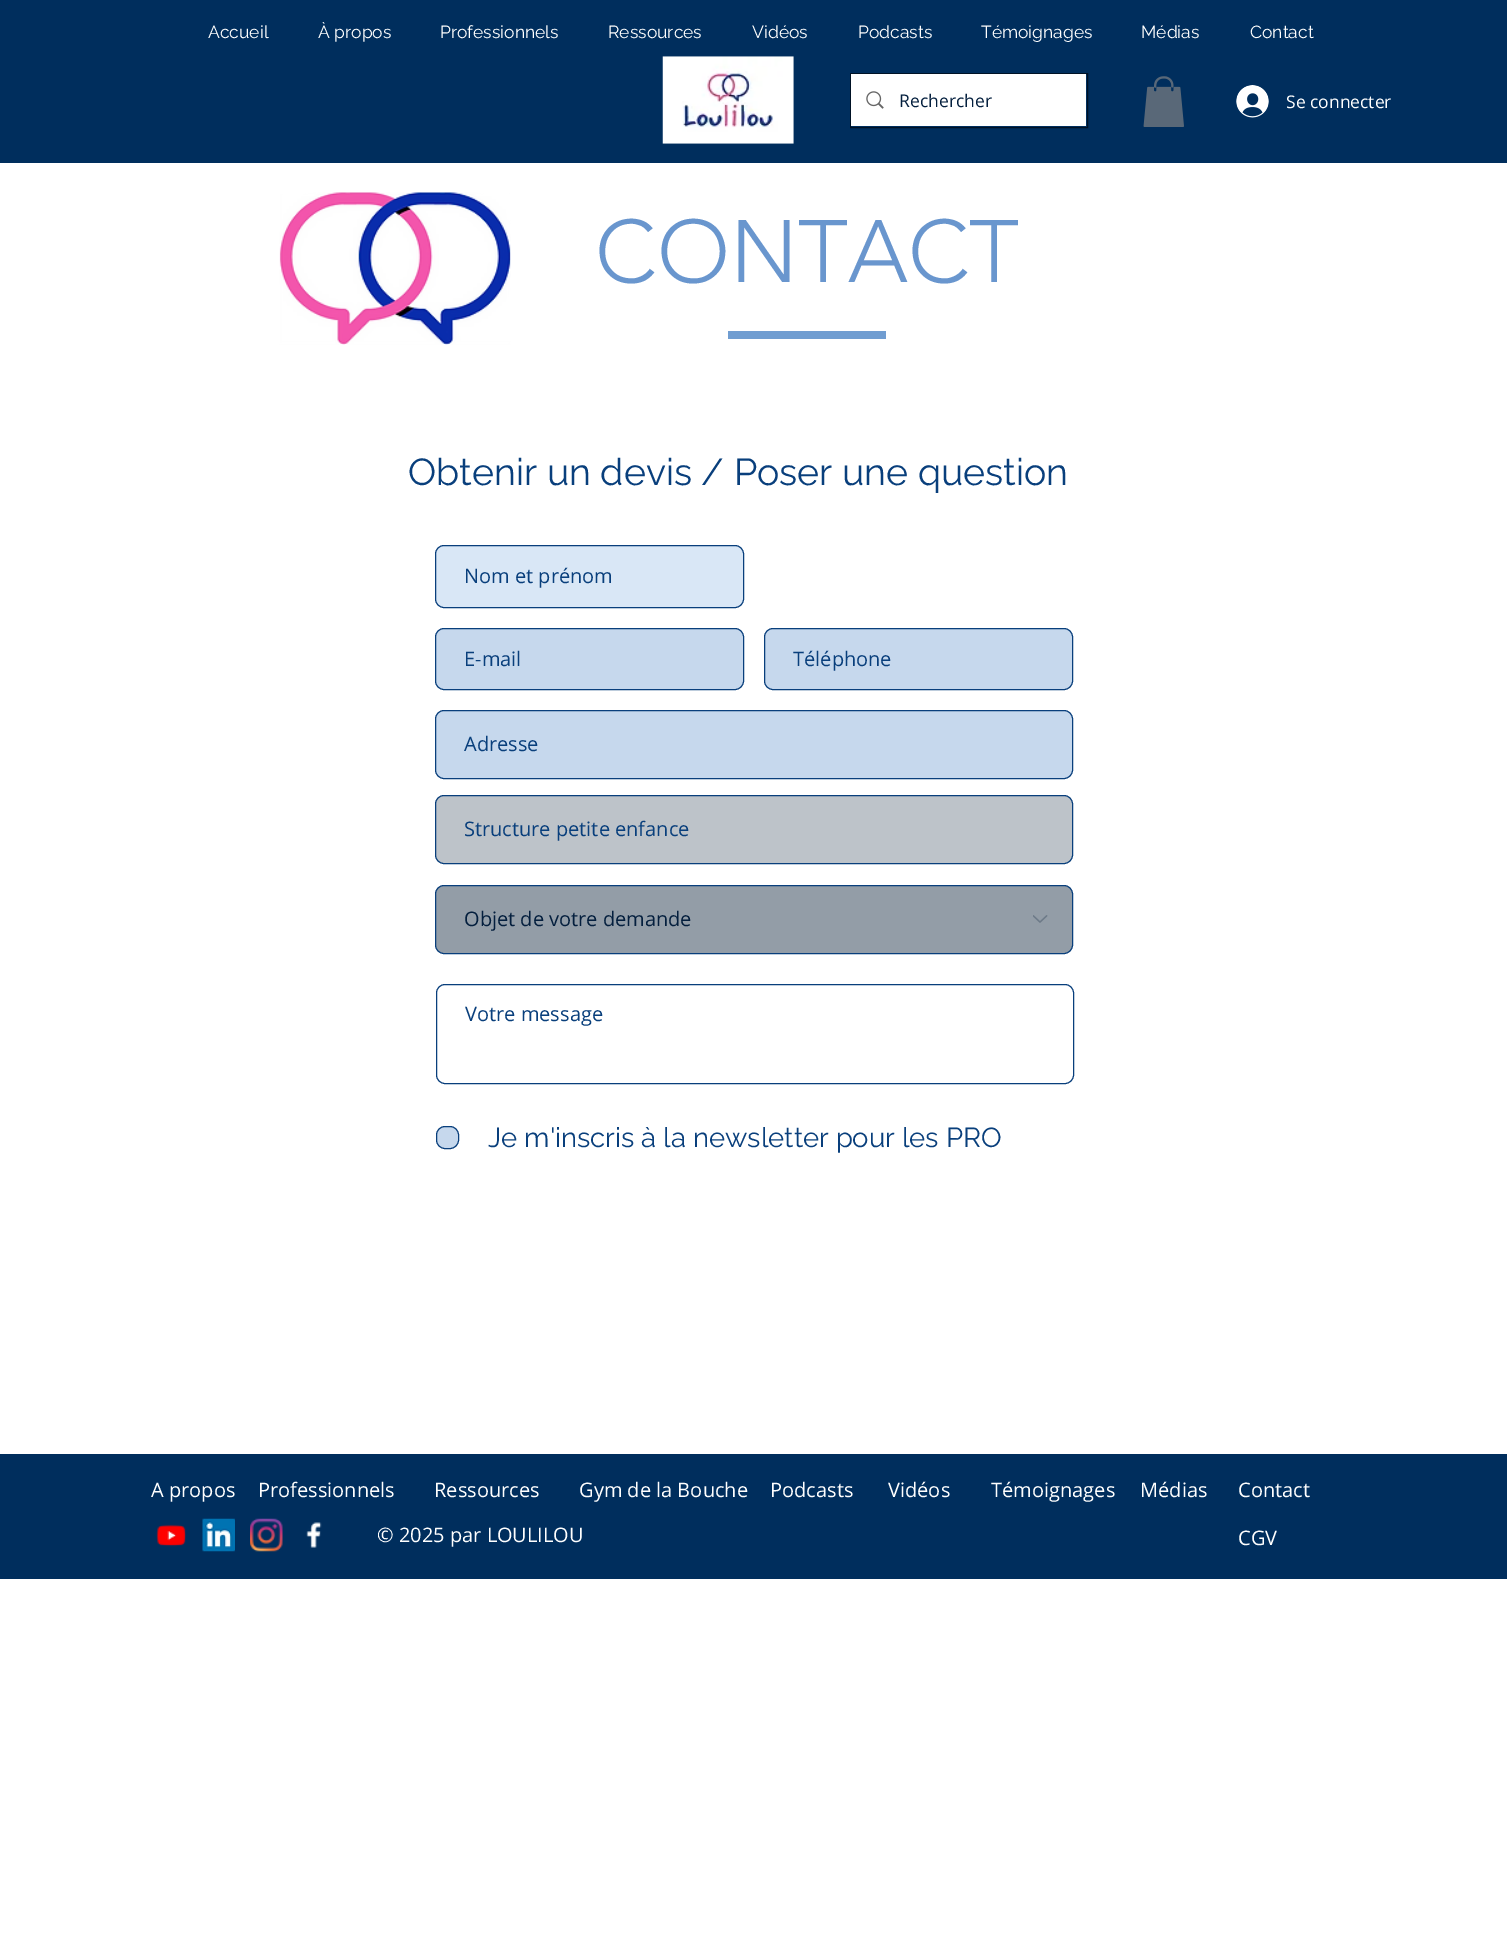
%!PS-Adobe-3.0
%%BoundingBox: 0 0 1507 1955
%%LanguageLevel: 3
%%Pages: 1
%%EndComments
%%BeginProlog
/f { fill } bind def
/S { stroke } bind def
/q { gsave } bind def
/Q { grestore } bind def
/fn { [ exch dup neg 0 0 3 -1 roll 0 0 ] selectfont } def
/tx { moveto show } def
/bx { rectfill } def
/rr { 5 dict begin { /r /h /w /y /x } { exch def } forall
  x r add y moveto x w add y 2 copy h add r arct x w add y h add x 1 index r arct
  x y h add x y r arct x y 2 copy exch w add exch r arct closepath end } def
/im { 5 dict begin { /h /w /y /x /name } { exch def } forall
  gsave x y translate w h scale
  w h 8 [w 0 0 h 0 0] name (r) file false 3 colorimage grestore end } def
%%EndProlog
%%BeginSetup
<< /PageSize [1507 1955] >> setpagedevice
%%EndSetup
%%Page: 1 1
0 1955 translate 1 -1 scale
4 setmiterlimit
1 setgray
0 0 1507 1955 bx
0 0.18 0.365 setrgbcolor
0 0 1507 163 bx
/Raleway-Regular 17.5 fn
1 setgray
(Accueil) 208 38 tx
(À propos) 318 38 tx
(Professionnels) 440 38 tx
(Ressources) 608 38 tx
(Vidéos) 752 38 tx
(Podcasts) 858 38 tx
(Témoignages) 981 38 tx
(Médias) 1141 38 tx
(Contact) 1250 38 tx
(image0.raw) 662 56 132 88 im
0 0.071 0.145 setrgbcolor
850.5 73.5 237 54 rectstroke
1 setgray
851 74 235 52 bx
(image1.raw) 866 91 18 18 im
/OpenSans-Regular 17.5 fn
0.016 0.122 0.243 setrgbcolor
(Rechercher) 899 107 tx
(image2.raw) 1143 76 41 51 im
(image3.raw) 1236 85 33 33 im
1 setgray
(Se connecter) 1286 108 tx
(image4.raw) 279 192 232 153 im
/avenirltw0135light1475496-Light 87.5 fn
0.412 0.588 0.808 setrgbcolor
(CONTACT) 595 282 tx
0.439 0.616 0.82 setrgbcolor
728 331 158 8 bx
/Raleway-Regular 37.5 fn
0.035 0.247 0.486 setrgbcolor
(Obtenir un devis / Poser une question) 408 485 tx
0.851 0.906 0.965 setrgbcolor
435.5 545.5 308 62 8.5 rr q f Q
0.035 0.247 0.486 setrgbcolor
S
/OpenSans-Regular 20 fn
(Nom et prénom) 464 583 tx
0.776 0.847 0.929 setrgbcolor
435.5 628.5 308 61 8.5 rr q f Q
0.035 0.247 0.486 setrgbcolor
S
(E-mail) 464 666 tx
0.776 0.847 0.929 setrgbcolor
764.5 628.5 308 61 8.5 rr q f Q
0.035 0.247 0.486 setrgbcolor
S
q
793 644 275 27 rectclip
(Téléphone) 793 666 tx
Q
0.776 0.847 0.929 setrgbcolor
435.5 710.5 637 68 8.5 rr q f Q
0.035 0.247 0.486 setrgbcolor
S
(Adresse) 464 751 tx
0.741 0.765 0.788 setrgbcolor
435.5 795.5 637 68 8.5 rr q f Q
0.035 0.247 0.486 setrgbcolor
S
(Structure petite enfance) 464 836 tx
0.576 0.616 0.655 setrgbcolor
435.5 885.5 637 68 8.5 rr q f Q
0.035 0.247 0.486 setrgbcolor
S
0.016 0.122 0.243 setrgbcolor
(Objet de votre demande) 464 926 tx
(image5.raw) 1033 915 15 8 im
0.035 0.247 0.486 setrgbcolor
436.5 984.5 637 99 8.5 rr S
(Votre message) 465 1021 tx
0.776 0.847 0.929 setrgbcolor
436.5 1126.5 22 22 8.5 rr q f Q
0.035 0.247 0.486 setrgbcolor
S
/Raleway-Regular 27.5 fn
(Je m'inscris à la newsletter pour les PRO) 488 1147 tx
0 0.18 0.365 setrgbcolor
0 1454 1507 125 bx
/OpenSans-Regular 20 fn
1 setgray
(A propos) 151 1497 tx
(Professionnels) 258 1497 tx
(Ressources) 434 1497 tx
(Gym de la Bouche) 579 1497 tx
(Podcasts) 770 1497 tx
(Vidéos) 888 1497 tx
(Témoignages) 991 1497 tx
(Médias) 1140 1497 tx
(Contact) 1238 1497 tx
(image6.raw) 156 1524 30 23 im
(image7.raw) 202 1518 33 34 im
(image8.raw) 250 1518 33 34 im
(image9.raw) 306 1522 16 26 im
(© 2025 par LOULILOU) 377 1542 tx
(CGV) 1238 1545 tx
showpage
%%EOF
